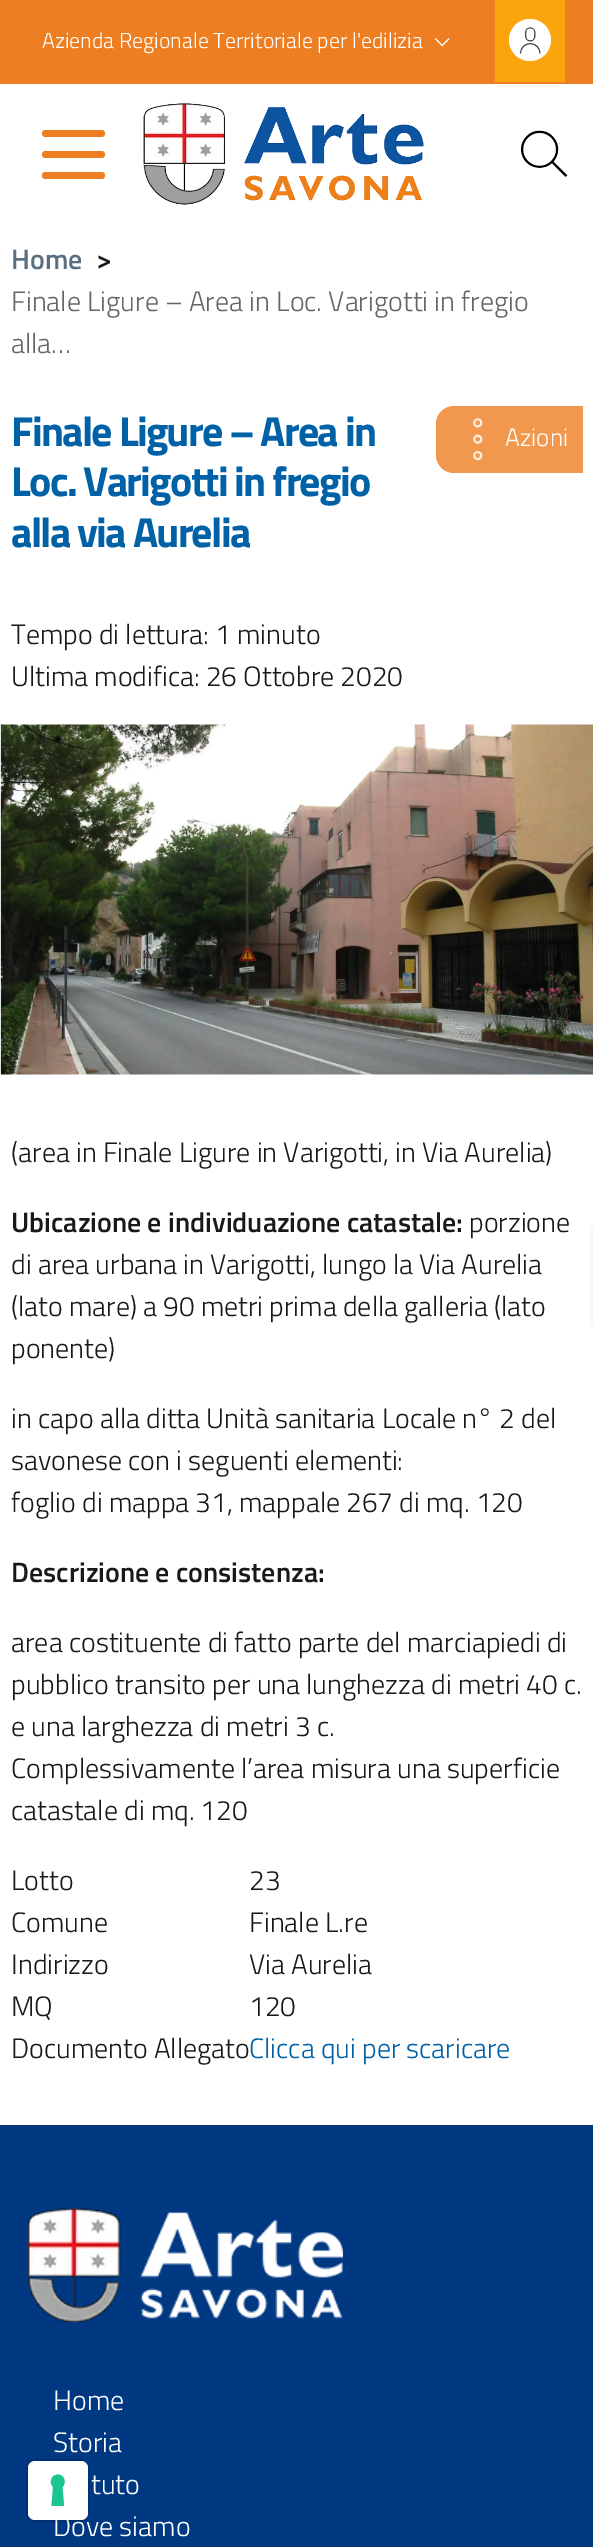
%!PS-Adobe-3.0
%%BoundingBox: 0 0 593 2547
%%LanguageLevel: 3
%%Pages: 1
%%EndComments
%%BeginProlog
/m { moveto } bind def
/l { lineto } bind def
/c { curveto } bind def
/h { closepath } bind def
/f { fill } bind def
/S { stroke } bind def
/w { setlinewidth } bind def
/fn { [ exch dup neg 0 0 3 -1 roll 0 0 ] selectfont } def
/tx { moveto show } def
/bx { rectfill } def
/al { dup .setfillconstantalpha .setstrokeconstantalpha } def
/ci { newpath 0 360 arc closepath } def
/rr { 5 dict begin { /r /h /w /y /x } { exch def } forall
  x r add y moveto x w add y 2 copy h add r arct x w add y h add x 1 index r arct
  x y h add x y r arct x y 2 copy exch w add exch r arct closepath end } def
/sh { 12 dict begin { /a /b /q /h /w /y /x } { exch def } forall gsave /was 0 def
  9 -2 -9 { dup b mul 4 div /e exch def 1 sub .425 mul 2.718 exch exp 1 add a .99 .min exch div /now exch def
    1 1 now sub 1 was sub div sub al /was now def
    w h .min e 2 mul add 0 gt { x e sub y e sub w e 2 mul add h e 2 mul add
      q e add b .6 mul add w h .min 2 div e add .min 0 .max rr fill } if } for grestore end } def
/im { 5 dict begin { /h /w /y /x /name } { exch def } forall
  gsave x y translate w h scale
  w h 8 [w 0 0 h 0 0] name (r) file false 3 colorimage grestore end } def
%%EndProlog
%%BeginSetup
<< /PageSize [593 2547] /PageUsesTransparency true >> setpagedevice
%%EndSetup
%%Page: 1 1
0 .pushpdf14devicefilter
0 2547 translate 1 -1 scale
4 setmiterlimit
1 setgray
0 0 593 2547 bx
0.929 0.494 0.133 setrgbcolor
0 0 593 84 bx
/TitilliumWeb-Light 21.75 fn
1 setgray
(Azienda Regionale Territoriale per l'edilizia) 42 48 tx
(image0.raw) 435 38 15 9 im
0.988 0.643 0.055 setrgbcolor
495 0 70 82 bx
1 setgray
530 40 21 ci f
(image1.raw) 519 27 22 27 im
0.929 0.494 0.133 setrgbcolor
42 130 63 7 3.5 rr f
42 151 63 7 3.5 rr f
42 172 63 7 3.5 rr f
(image2.raw) 143 103 281 102 im
(image3.raw) 520 130 48 47 im
/TitilliumWeb-SemiBold 28 fn
0.357 0.435 0.51 setrgbcolor
(Home) 11 269 tx
0.098 0.098 0.102 setrgbcolor
(>) 96 269 tx
/TitilliumWeb-Light 28 fn
0.396 0.396 0.4 setrgbcolor
(Finale Ligure – Area in Loc. Varigotti in fregio) 11 311 tx
(alla…) 11 353 tx
/TitilliumWeb-Bold 42 fn
0.004 0.38 0.655 setrgbcolor
11 446 m -1.75 0 (Finale Ligure – Area in) ashow
11 496 m -1.75 0 (Loc. Varigotti in fregio) ashow
11 547 m -1.75 0 (alla via Aurelia) ashow
0.945 0.596 0.306 setrgbcolor
454 406 m 583 406 l 583 473 l 454 473 l 444 473 436 465 436 455 c 436 424 l 436 414 444 406 454 406 c h f
(image4.raw) 473 418 10 43 im
/TitilliumWeb-Light 25 fn
1 setgray
(Azioni) 505 446 tx
/TitilliumWeb-Light 28 fn
0.098 0.098 0.102 setrgbcolor
(Tempo di lettura: 1 minuto) 11 644 tx
(Ultima modifica: 26 Ottobre 2020) 11 686 tx
(image5.raw) 0 724 593 351 im
(\(area in Finale Ligure in Varigotti, in Via Aurelia\)) 11 1162 tx
/TitilliumWeb-SemiBold 28 fn
(Ubicazione e individuazione catastale:) 11 1232 tx
/TitilliumWeb-Light 28 fn
(porzione) 469 1232 tx
(di area urbana in Varigotti, lungo la Via Aurelia) 11 1274 tx
(\(lato mare\) a 90 metri prima della galleria \(lato) 11 1316 tx
(ponente\)) 11 1358 tx
(in capo alla ditta Unità sanitaria Locale n° 2 del) 11 1428 tx
(savonese con i seguenti elementi:) 11 1470 tx
(foglio di mappa 31, mappale 267 di mq. 120) 11 1512 tx
/TitilliumWeb-SemiBold 28 fn
(Descrizione e consistenza:) 11 1582 tx
/TitilliumWeb-Light 28 fn
(area costituente di fatto parte del marciapiedi di) 11 1652 tx
(pubblico transito per una lunghezza di metri 40 c.) 11 1694 tx
(e una larghezza di metri 3 c.) 11 1736 tx
(Complessivamente l’area misura una superficie) 11 1778 tx
(catastale di mq. 120) 11 1820 tx
(Lotto) 11 1890 tx
(23) 249 1890 tx
(Comune) 11 1932 tx
(Finale L.re) 249 1932 tx
(Indirizzo) 11 1974 tx
(Via Aurelia) 249 1974 tx
(MQ) 11 2016 tx
(120) 249 2016 tx
(Documento Allegato) 11 2058 tx
0.004 0.38 0.655 setrgbcolor
(Clicca qui per scaricare) 249 2058 tx
0.467 setgray
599 1229 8 94 0 4.5 1 sh
0 0.22 0.51 setrgbcolor
0 2125 593 422 bx
(image6.raw) 28 2208 315 115 im
1 setgray
(Home) 53 2410 tx
(Storia) 53 2452 tx
(tuto) 91 2494 tx
(Dove siamo) 53 2536 tx
0.15 al
0 setgray
2 w
27 2460 61 61 8 rr S
1 al
1 setgray
28 2461 60 59 7 rr f
0.11 0.776 0.569 setrgbcolor
58 2474.5 m 64 2474.5 67 2482.5 62.5 2487 c 64 2506 l 51.5 2506 l 53 2487 l 48.5 2482.5 51.5 2474.5 58 2474.5 c h eofill
.poppdf14devicefilter showpage
%%EOF
